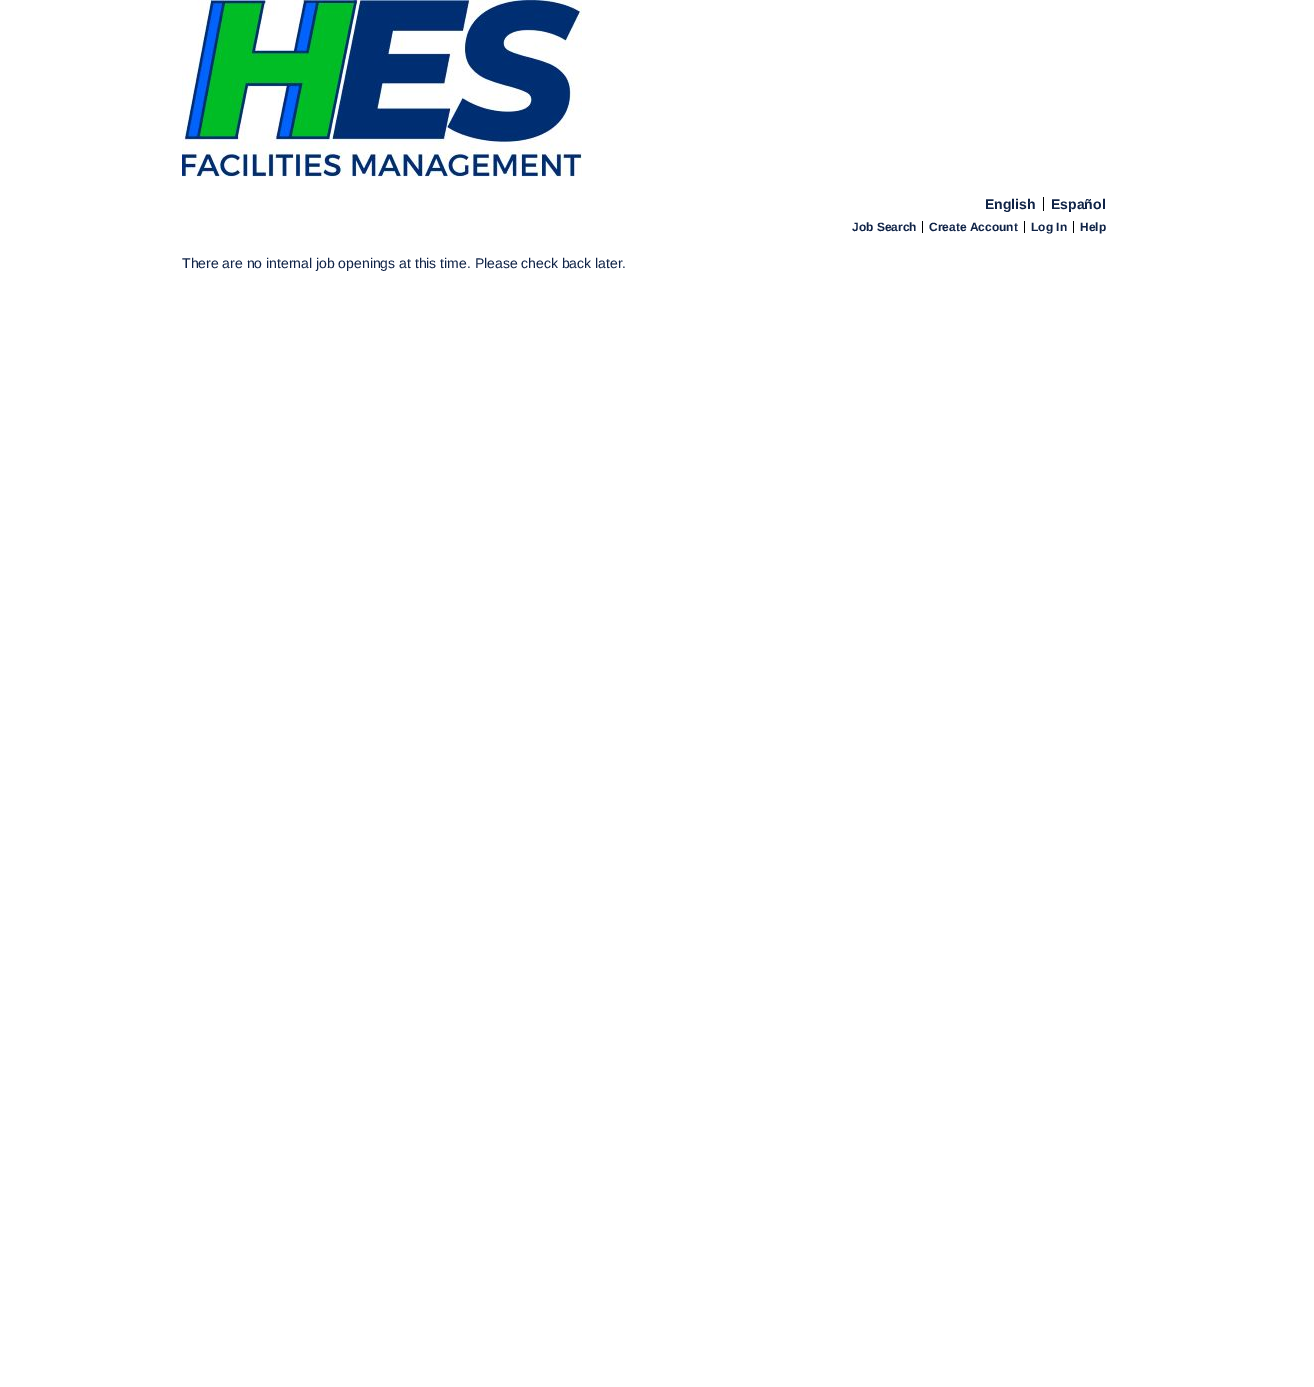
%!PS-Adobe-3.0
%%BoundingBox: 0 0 1314 1387
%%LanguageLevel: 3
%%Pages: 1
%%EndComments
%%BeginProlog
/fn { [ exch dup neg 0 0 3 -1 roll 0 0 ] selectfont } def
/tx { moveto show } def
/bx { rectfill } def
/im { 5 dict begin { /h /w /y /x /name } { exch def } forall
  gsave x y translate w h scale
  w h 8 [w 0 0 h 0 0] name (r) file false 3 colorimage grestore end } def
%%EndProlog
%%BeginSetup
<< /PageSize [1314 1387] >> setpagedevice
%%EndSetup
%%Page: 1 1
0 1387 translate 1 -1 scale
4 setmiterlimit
1 setgray
0 0 1314 1387 bx
(image0.raw) 182 0 400 177 im
0 setgray
1043 197 1 14 bx
/LiberationSans-Bold 14 fn
0.063 0.137 0.275 setrgbcolor
(English) 985 209 tx
(Español) 1051 209 tx
0 setgray
922 221 1 12 bx
/LiberationSans-Bold 12 fn
0.063 0.137 0.275 setrgbcolor
(Job Search) 852 231 tx
0 setgray
1024 221 1 12 bx
0.063 0.137 0.275 setrgbcolor
(Create Account) 929 231 tx
0 setgray
1073 221 1 12 bx
0.063 0.137 0.275 setrgbcolor
(Log In) 1031 231 tx
(Help) 1080 231 tx
/LiberationSans-Regular 14 fn
(There are no internal job openings at this time. Please check back later.) 182 268 tx
showpage
%%EOF
